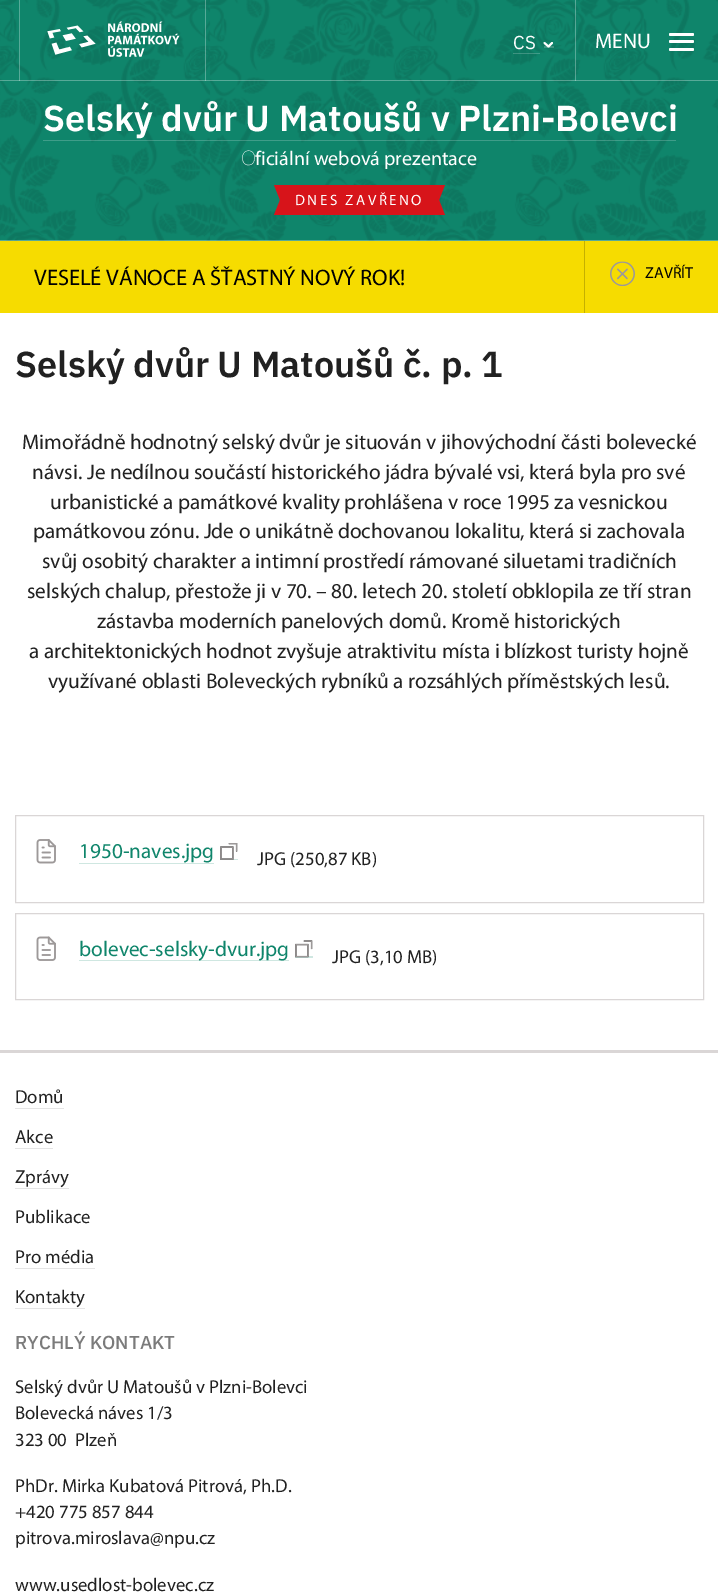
%!PS-Adobe-3.0
%%BoundingBox: 0 0 718 1593
%%LanguageLevel: 3
%%Pages: 1
%%EndComments
%%BeginProlog
/m { moveto } bind def
/l { lineto } bind def
/h { closepath } bind def
/f { fill } bind def
/S { stroke } bind def
/w { setlinewidth } bind def
/fn { [ exch dup neg 0 0 3 -1 roll 0 0 ] selectfont } def
/tx { moveto show } def
/bx { rectfill } def
/al { dup .setfillconstantalpha .setstrokeconstantalpha } def
/rr { 5 dict begin { /r /h /w /y /x } { exch def } forall
  x r add y moveto x w add y 2 copy h add r arct x w add y h add x 1 index r arct
  x y h add x y r arct x y 2 copy exch w add exch r arct closepath end } def
/im { 5 dict begin { /h /w /y /x /name } { exch def } forall
  gsave x y translate w h scale
  w h 8 [w 0 0 h 0 0] name (r) file false 3 colorimage grestore end } def
%%EndProlog
%%BeginSetup
<< /PageSize [718 1593] /PageUsesTransparency true >> setpagedevice
%%EndSetup
%%Page: 1 1
0 .pushpdf14devicefilter
0 1593 translate 1 -1 scale
4 setmiterlimit
1 setgray
0 0 718 1593 bx
0.059 0.522 0.42 setrgbcolor
0 0 718 241 bx
(image0.raw) 0 0 718 81 im
0.3 al
1 setgray
0 80 718 1 bx
205 0 1 81 bx
19 0 1 81 bx
1 al
(image1.raw) 47 21 133 36 im
/IBMPlexSans-Regular 18.75 fn
(CS) 513 49 tx
0.2 al
513 53 27 1 bx
544 46 10 2 bx
1 al
1.9 w
1 setlinecap
1 setlinejoin
552 43 m 548.5 46.5 l 544.5 43 l S
0.3 al
575 0 1 81 bx
/Myriad-Regular 21.3 fn
1 al
(MENU) 595 48 tx
669 33 25 3 1.5 rr f
669 40 25 3 1.5 rr f
669 48 25 3 1.5 rr f
(image2.raw) 0 81 718 160 im
0.3 al
0 240 718 1 bx
/IBMPlexSans-SemiBold 36 fn
1 al
(Selský dvůr U Matoušů v Plzni-Bolevci) 43 131 tx
0.2 al
43 140 633 1 bx
/NotoSans-Thin 20 fn
1 al
(O) 241 165 tx
/Myriad-Regular 20 fn
(ficiální webová prezentace) 255 165 tx
0.843 0.078 0.102 setrgbcolor
286 185 147 30 bx
274 185 m 286 185 l 280 200 l h f
280 185 6 30 bx
286 215 m 274 215 l 280 200 l h f
/Myriad-Regular 15 fn
1 setgray
295 205 m 2.5 0 (DNES ZAVŘENO) ashow
0.843 0.078 0.102 setrgbcolor
432.5 185 m 445 185 l 439 200 l h 445 215 m 432.5 215 l 439 200 l h f
433 185 6 30 bx
0.965 0.863 0 setrgbcolor
0 241 718 72 bx
/Myriad-Regular 22.5 fn
0.004 setgray
(VESELÉ VÁNOCE A ŠŤASTNÝ NOVÝ ROK!) 34 285 tx
0.773 0.69 0 setrgbcolor
584 241 1 72 bx
(image3.raw) 610 261 25 25 im
/Myriad-Regular 16 fn
0.004 setgray
(ZAVŘÍT) 645 278 tx
/IBMPlexSans-SemiBold 36 fn
0.129 setgray
(Selský dvůr U Matoušů č. p. 1) 15 377 tx
/Myriad-Regular 21.3 fn
(Mimořádně hodnotný selský dvůr je situován v jihovýchodní části bolevecké) 22 449 tx
(návsi. Je nedílnou součástí historického jádra bývalé vsi, která byla pro své) 32 479 tx
(urbanistické a památkové kvality prohlášena v roce 1995 za vesnickou) 50 509 tx
(památkovou zónu. Jde o unikátně dochovanou lokalitu, která si zachovala) 33 538 tx
(svůj osobitý charakter a intimní prostředí rámované siluetami tradičních) 42 568 tx
(selských chalup, přestože ji v 70. – 80. letech 20. století obklopila ze tří stran) 27 598 tx
(zástavba moderních panelových domů. Kromě historických) 97 628 tx
(a architektonických hodnot zvyšuje atraktivitu místa i blízkost turisty hojně) 29 658 tx
(využívané oblasti Boleveckých rybníků a rozsáhlých příměstských lesů.) 48 688 tx
0.855 0.839 0.839 setrgbcolor
1 w
0 setlinecap
0 setlinejoin
15.5 815.5 688 87 rectstroke
(image4.raw) 36 839 20 25 im
0.812 0.906 0.882 setrgbcolor
79 863 135 1 bx
220 859 18 1 bx
0.059 0.522 0.42 setrgbcolor
(1950-naves.jpg) 79 858 tx
(image5.raw) 220 843 18 17 im
(image6.raw) 220 843 17 17 im
/Myriad-Regular 18.75 fn
0.129 setgray
(JPG \(250,87 KB\)) 257 865 tx
0.855 0.839 0.839 setrgbcolor
15.5 913.5 688 86 rectstroke
(image7.raw) 36 936 20 25 im
0.812 0.906 0.882 setrgbcolor
79 960 210 1 bx
295 956 18 2 bx
/Myriad-Regular 21.3 fn
0.059 0.522 0.42 setrgbcolor
(bolevec-selsky-dvur.jpg) 79 956 tx
(image8.raw) 295 940 18 18 im
(image9.raw) 295 940 17 17 im
/Myriad-Regular 18.75 fn
0.129 setgray
(JPG \(3,10 MB\)) 332 963 tx
0.855 0.839 0.839 setrgbcolor
0 1050 718 3 bx
0.129 setgray
(Domů) 15 1103 tx
0.894 setgray
15 1108 49 1 bx
0.129 setgray
(Akce) 15 1143 tx
0.894 setgray
15 1148 38 1 bx
0.129 setgray
(Zprávy) 15 1183 tx
0.894 setgray
15 1188 54 1 bx
0.129 setgray
(Publikace) 15 1223 tx
(Pro média) 15 1263 tx
0.894 setgray
15 1268 80 1 bx
0.129 setgray
(Kontakty) 15 1303 tx
0.894 setgray
15 1308 70 1 bx
/IBMPlexSans-Medium 18.75 fn
0.482 setgray
(RYCHLÝ KONTAKT) 15 1349 tx
/Myriad-Regular 18.75 fn
0.129 setgray
(Selský dvůr U Matoušů v Plzni-Bolevci) 15 1393 tx
(Bolevecká náves 1/3) 15 1419 tx
(323 00  Plzeň) 15 1446 tx
(PhDr. Mirka Kubatová Pitrová, Ph.D.) 15 1492 tx
(+420 775 857 844) 15 1518 tx
(pitrova.miroslava@npu.cz) 15 1544 tx
(www.usedlost-bolevec.cz) 15 1591 tx
.poppdf14devicefilter showpage
%%EOF
